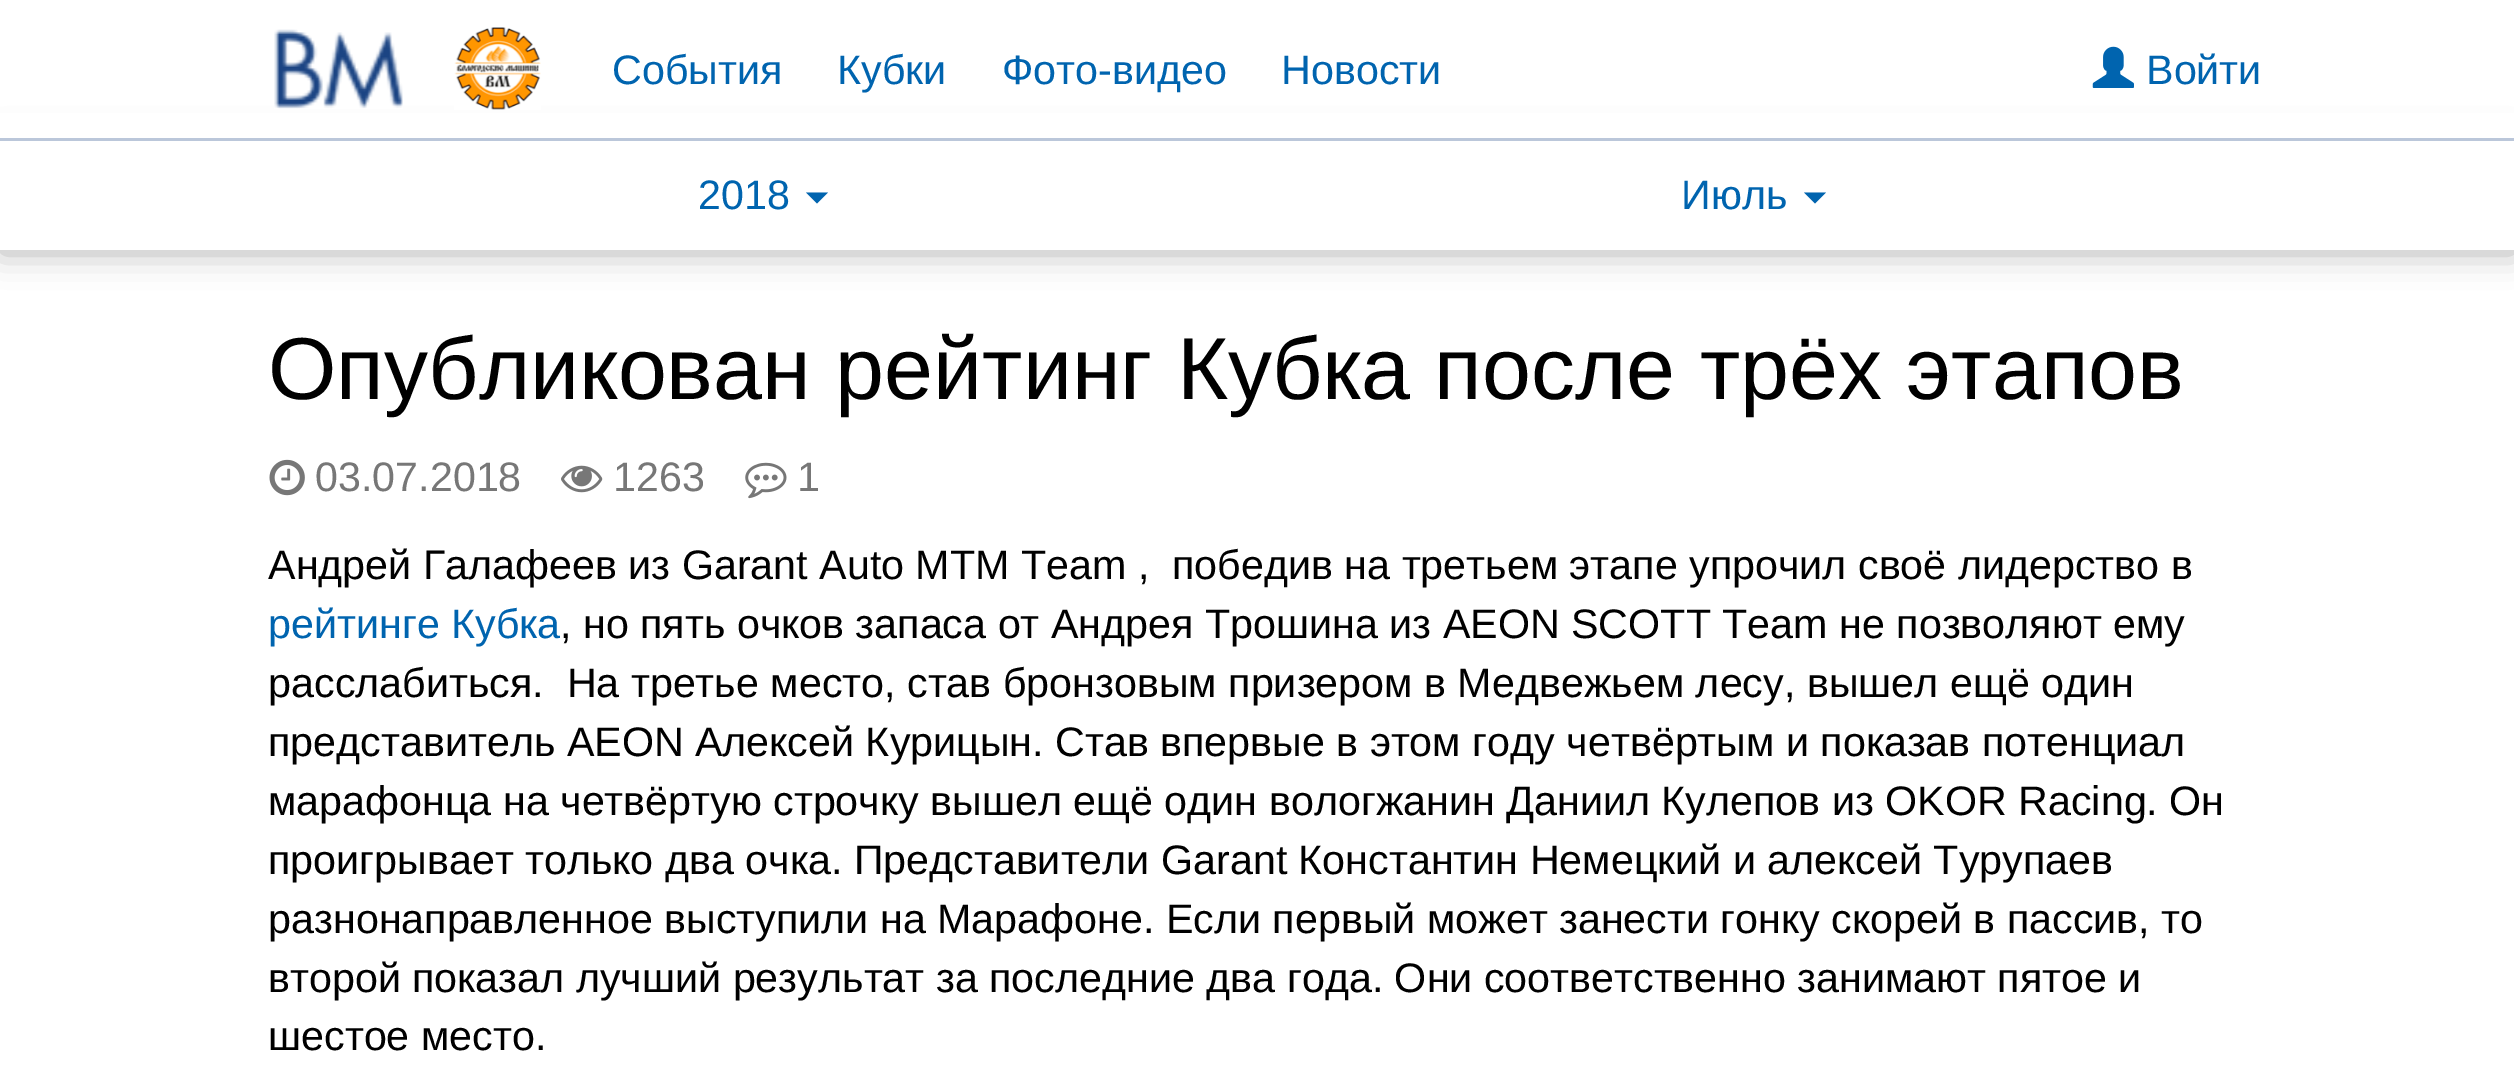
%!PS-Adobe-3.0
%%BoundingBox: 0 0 2514 1068
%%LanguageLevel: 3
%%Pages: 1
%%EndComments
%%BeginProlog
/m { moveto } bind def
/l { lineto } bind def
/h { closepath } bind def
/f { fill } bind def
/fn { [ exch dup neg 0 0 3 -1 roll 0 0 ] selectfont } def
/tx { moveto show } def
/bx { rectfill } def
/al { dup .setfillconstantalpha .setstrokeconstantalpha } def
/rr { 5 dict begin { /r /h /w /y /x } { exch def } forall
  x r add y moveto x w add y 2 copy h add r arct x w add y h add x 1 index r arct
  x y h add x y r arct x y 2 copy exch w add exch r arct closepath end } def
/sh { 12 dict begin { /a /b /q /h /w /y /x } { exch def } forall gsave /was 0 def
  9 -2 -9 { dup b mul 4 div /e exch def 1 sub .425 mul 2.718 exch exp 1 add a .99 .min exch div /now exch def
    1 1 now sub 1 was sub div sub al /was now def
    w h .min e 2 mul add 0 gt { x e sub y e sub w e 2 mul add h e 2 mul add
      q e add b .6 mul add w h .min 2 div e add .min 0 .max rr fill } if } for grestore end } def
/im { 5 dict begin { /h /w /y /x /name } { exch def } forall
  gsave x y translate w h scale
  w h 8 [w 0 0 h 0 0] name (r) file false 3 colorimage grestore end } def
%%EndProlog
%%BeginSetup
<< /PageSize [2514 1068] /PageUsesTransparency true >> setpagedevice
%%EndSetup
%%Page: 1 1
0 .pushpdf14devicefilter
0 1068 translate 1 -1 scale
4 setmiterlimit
1 setgray
0 0 2514 1068 bx
0 setgray
0 143 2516 110 0 16.5 0.3 sh
1 setgray
0 113 2514 25 bx
0.733 0.78 0.855 setrgbcolor
0 138 2514 3 bx
(image0.raw) 274 29 129 80 im
(image1.raw) 454 27 87 83 im
/LiberationSans-Regular 41.25 fn
0 0.392 0.686 setrgbcolor
(События) 612 84 tx
(Кубки) 837 84 tx
(Фото-видео) 1002 84 tx
(Новости) 1281 84 tx
(image2.raw) 2092 46 42 42 im
(Войти) 2146 84 tx
1 setgray
0 141 2514 109 bx
0 0.392 0.686 setrgbcolor
(2018) 698 209 tx
806 192.5 m 828 192.5 l 817 203.5 l h f
(Июль) 1681 209 tx
1804 192.5 m 1826 192.5 l 1815 203.5 l h f
/LiberationSans-Regular 88 fn
0 setgray
(Опубликован рейтинг Кубка после трёх этапов) 268 399 tx
(image3.raw) 269 459 36 37 im
/LiberationSans-Regular 41.25 fn
0.467 setgray
(03.07.2018) 315 491 tx
(image4.raw) 561 465 42 28 im
(1263) 613 491 tx
(image5.raw) 745 462 42 37 im
(1) 797 491 tx
0 setgray
(Андрей Галафеев из Garant Auto MTM Team ,  победив на третьем этапе упрочил своё лидерство в) 268 579 tx
0 0.392 0.686 setrgbcolor
(рейтинге Кубка) 268 638 tx
0 setgray
(, но пять очков запаса от Андрея Трошина из AEON SCOTT Team не позволяют ему) 560 638 tx
(расслабиться.  На третье место, став бронзовым призером в Медвежьем лесу, вышел ещё один) 268 697 tx
(представитель AEON Алексей Курицын. Став впервые в этом году четвёртым и показав потенциал) 268 756 tx
(марафонца на четвёртую строчку вышел ещё один вологжанин Даниил Кулепов из OKOR Racing. Он) 268 815 tx
(проигрывает только два очка. Представители Garant Константин Немецкий и алексей Турупаев) 268 874 tx
(разнонаправленное выступили на Марафоне. Если первый может занести гонку скорей в пассив, то) 268 933 tx
(второй показал лучший результат за последние два года. Они соответственно занимают пятое и) 268 992 tx
(шестое место.) 268 1050 tx
.poppdf14devicefilter showpage
%%EOF
